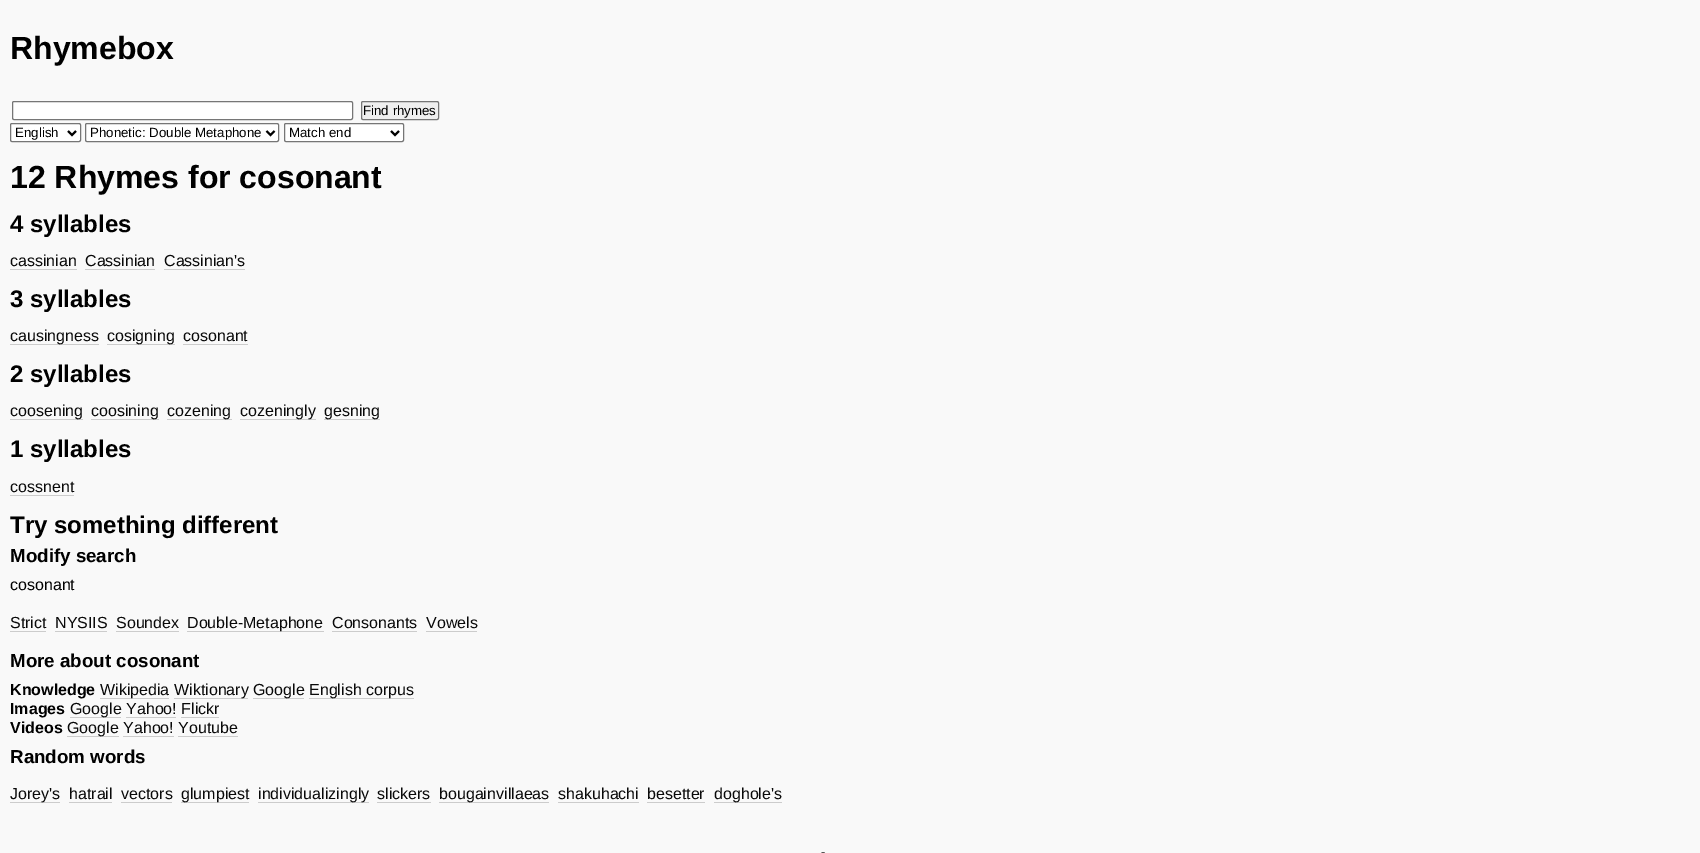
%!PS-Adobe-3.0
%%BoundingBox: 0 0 1700 853
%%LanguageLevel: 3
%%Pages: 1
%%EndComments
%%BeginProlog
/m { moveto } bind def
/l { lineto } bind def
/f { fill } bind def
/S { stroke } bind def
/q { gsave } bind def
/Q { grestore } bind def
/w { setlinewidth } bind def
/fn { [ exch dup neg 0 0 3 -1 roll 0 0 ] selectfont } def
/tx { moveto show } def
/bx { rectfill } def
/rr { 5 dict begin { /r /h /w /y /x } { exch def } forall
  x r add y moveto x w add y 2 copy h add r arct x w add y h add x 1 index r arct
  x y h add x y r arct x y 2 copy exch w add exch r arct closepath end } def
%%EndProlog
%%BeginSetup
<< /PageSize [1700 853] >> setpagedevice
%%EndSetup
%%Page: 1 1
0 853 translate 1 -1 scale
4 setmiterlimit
0.976 setgray
0 0 1700 853 bx
/LiberationSans-Bold 32 fn
0 setgray
(Rhymebox) 10 59 tx
1 setgray
12.5 101.5 340 18 1.5 rr q f Q
0.463 setgray
S
0.937 setgray
361.5 101.5 77 18 1.5 rr q f Q
0.463 setgray
S
/LiberationSans-Regular 13.3 fn
0 setgray
(Find rhymes) 363 115 tx
1 setgray
10.5 123.5 70 18 1.5 rr q f Q
0.463 setgray
S
0 setgray
2 w
68 131 m 72 135 l 76 131 l S
(English) 15 137 tx
1 setgray
85.5 123.5 193 18 1.5 rr q f Q
0.463 setgray
1 w
S
0 setgray
2 w
266.5 131 m 270.5 135 l 274.5 131 l S
(Phonetic: Double Metaphone) 90 137 tx
1 setgray
284.5 123.5 119 18 1.5 rr q f Q
0.463 setgray
1 w
S
0 setgray
2 w
391 131 m 395 135 l 399 131 l S
(Match end) 289 137 tx
/LiberationSans-Bold 32 fn
(12 Rhymes for cosonant) 10 188 tx
/LiberationSans-Bold 24 fn
(4 syllables) 10 232 tx
/LiberationSans-Regular 16 fn
0.035 setgray
(cassinian) 10 266 tx
0.8 setgray
10 269 67 1 bx
0.035 setgray
(Cassinian) 85 266 tx
0.8 setgray
85 269 70 1 bx
0.035 setgray
(Cassinian's) 164 266 tx
0.8 setgray
164 269 81 1 bx
/LiberationSans-Bold 24 fn
0 setgray
(3 syllables) 10 307 tx
0.8 setgray
10 344 89 1 bx
/LiberationSans-Regular 16 fn
0.035 setgray
(causingness) 10 341 tx
0.8 setgray
107 344 68 1 bx
0.035 setgray
(cosigning) 107 341 tx
(cosonant) 183 341 tx
0.8 setgray
183 344 65 1 bx
/LiberationSans-Bold 24 fn
0 setgray
(2 syllables) 10 382 tx
0.8 setgray
10 419 73 1 bx
/LiberationSans-Regular 16 fn
0.035 setgray
(coosening) 10 416 tx
0.8 setgray
91 419 68 1 bx
0.035 setgray
(coosining) 91 416 tx
0.8 setgray
167 419 65 1 bx
0.035 setgray
(cozening) 167 416 tx
0.8 setgray
240 419 76 1 bx
0.035 setgray
(cozeningly) 240 416 tx
0.8 setgray
324 419 56 1 bx
0.035 setgray
(gesning) 324 416 tx
/LiberationSans-Bold 24 fn
0 setgray
(1 syllables) 10 457 tx
/LiberationSans-Regular 16 fn
0.035 setgray
(cossnent) 10 492 tx
0.8 setgray
10 495 64 1 bx
/LiberationSans-Bold 24 fn
0 setgray
(Try something different) 10 533 tx
/LiberationSans-Bold 18.75 fn
(Modify search) 10 562 tx
/LiberationSans-Regular 16 fn
(cosonant) 10 590 tx
0.035 setgray
(Strict) 10 628 tx
0.8 setgray
10 631 36 1 bx
0.035 setgray
(NYSIIS) 55 628 tx
0.8 setgray
55 631 52 1 bx
0.035 setgray
(Soundex) 116 628 tx
0.8 setgray
116 631 63 1 bx
187 631 137 1 bx
0.035 setgray
(Double-Metaphone) 187 628 tx
(Consonants) 332 628 tx
0.8 setgray
332 631 85 1 bx
0.035 setgray
(Vowels) 426 628 tx
0.8 setgray
426 631 51 1 bx
/LiberationSans-Bold 18.75 fn
0 setgray
(More about cosonant) 10 667 tx
/LiberationSans-Bold 16 fn
(Knowledge) 10 695 tx
0.8 setgray
100 698 69 1 bx
/LiberationSans-Regular 16 fn
0.035 setgray
(Wikipedia) 100 695 tx
0.8 setgray
174 698 74 1 bx
0.035 setgray
(Wiktionary) 174 695 tx
0.8 setgray
253 698 51 1 bx
0.035 setgray
(Google) 253 695 tx
0.8 setgray
309 698 105 1 bx
0.035 setgray
(English corpus) 309 695 tx
/LiberationSans-Bold 16 fn
0 setgray
(Images) 10 714 tx
0.8 setgray
70 717 51 1 bx
/LiberationSans-Regular 16 fn
0.035 setgray
(Google Yahoo! Flickr) 70 714 tx
0.8 setgray
126 717 50 1 bx
181 717 38 1 bx
/LiberationSans-Bold 16 fn
0 setgray
(Videos) 10 733 tx
0.8 setgray
67 736 52 1 bx
/LiberationSans-Regular 16 fn
0.035 setgray
(Google Yahoo! Youtube) 67 733 tx
0.8 setgray
123 736 51 1 bx
178 736 60 1 bx
/LiberationSans-Bold 18.75 fn
0 setgray
(Random words) 10 763 tx
0.8 setgray
10 802 50 1 bx
/LiberationSans-Regular 16 fn
0.035 setgray
(Jorey's) 10 799 tx
(hatrail) 69 799 tx
0.8 setgray
69 802 43 1 bx
0.035 setgray
(vectors) 121 799 tx
0.8 setgray
121 802 51 1 bx
181 802 68 1 bx
0.035 setgray
(glumpiest) 181 799 tx
0.8 setgray
258 802 111 1 bx
0.035 setgray
(individualizingly) 258 799 tx
(slickers) 377 799 tx
0.8 setgray
377 802 54 1 bx
439 802 110 1 bx
0.035 setgray
(bougainvillaeas) 439 799 tx
(shakuhachi) 558 799 tx
0.8 setgray
558 802 81 1 bx
0.035 setgray
(besetter) 647 799 tx
0.8 setgray
647 802 58 1 bx
714 802 68 1 bx
0.035 setgray
(doghole's) 714 799 tx
/LiberationSans-Regular 13.3 fn
0.333 setgray
(-) 821 856 tx
showpage
%%EOF
